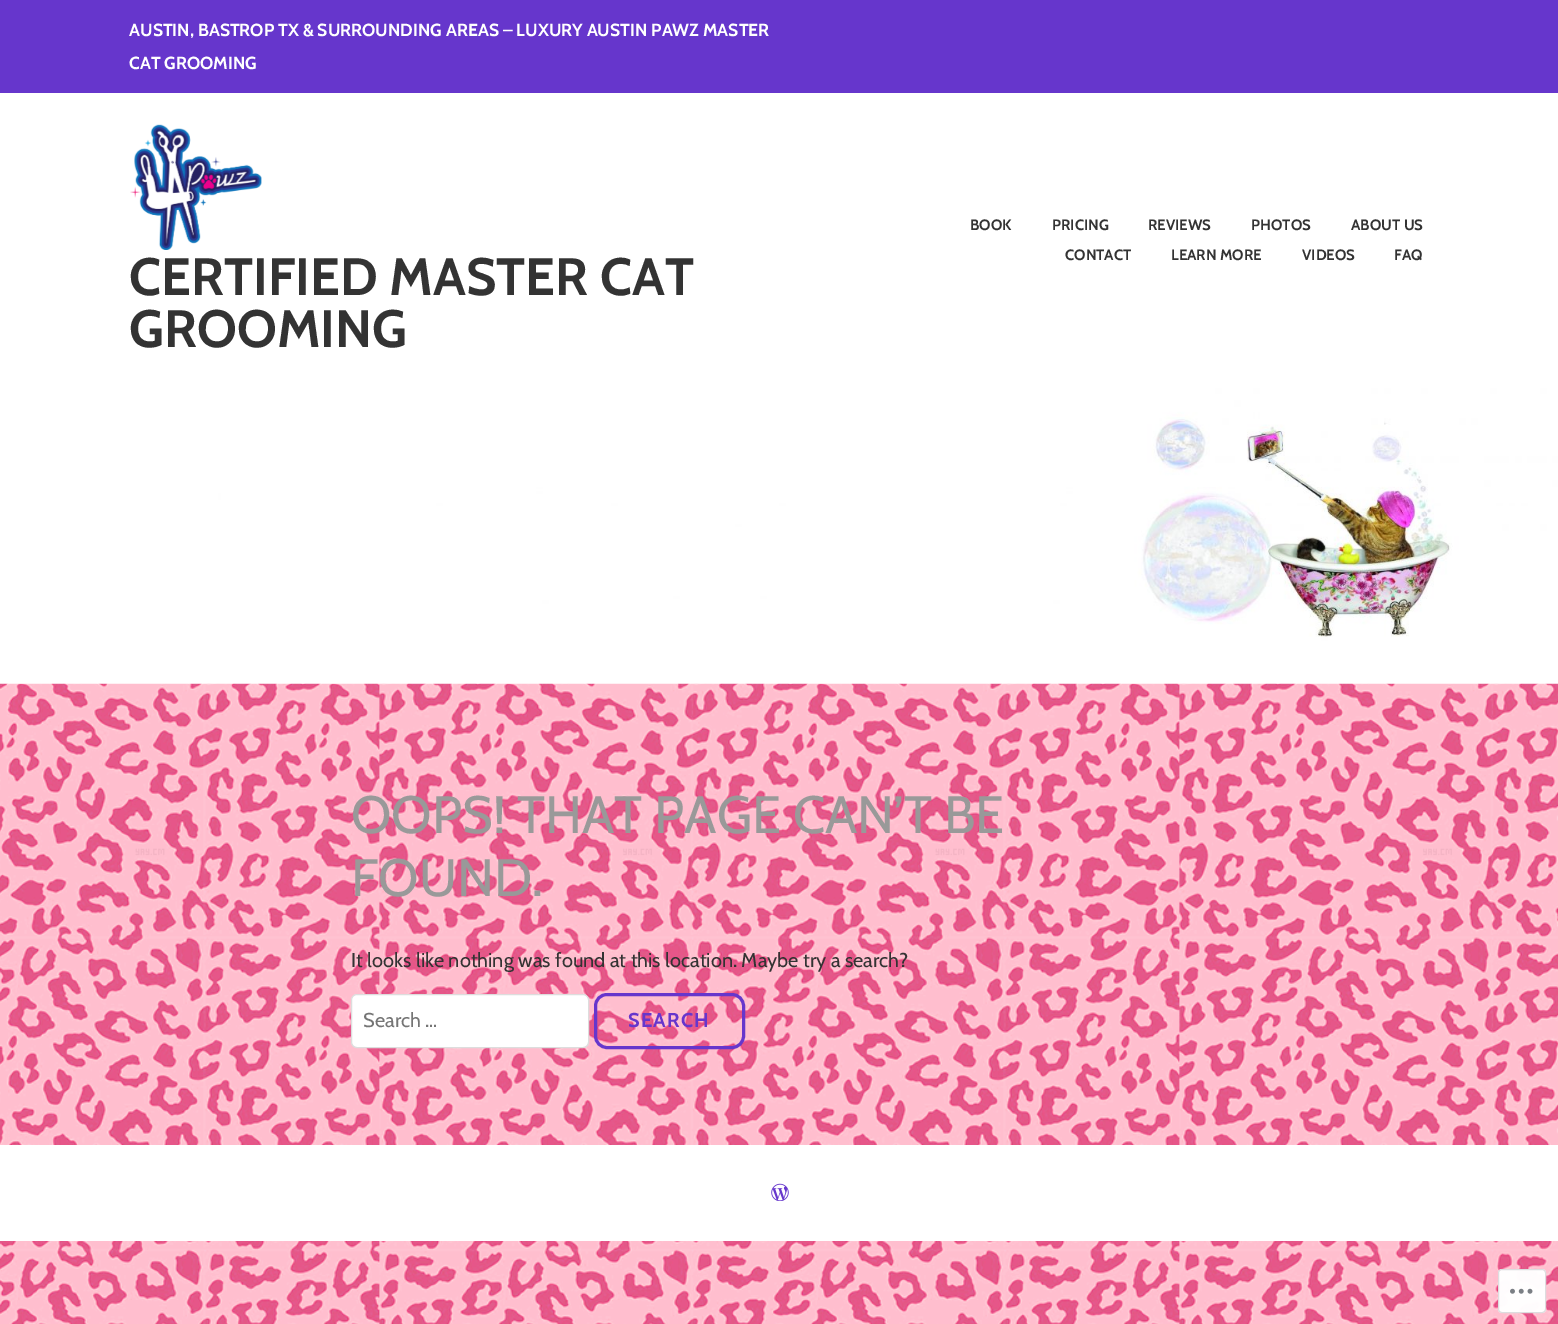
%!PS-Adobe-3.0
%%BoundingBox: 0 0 1558 1324
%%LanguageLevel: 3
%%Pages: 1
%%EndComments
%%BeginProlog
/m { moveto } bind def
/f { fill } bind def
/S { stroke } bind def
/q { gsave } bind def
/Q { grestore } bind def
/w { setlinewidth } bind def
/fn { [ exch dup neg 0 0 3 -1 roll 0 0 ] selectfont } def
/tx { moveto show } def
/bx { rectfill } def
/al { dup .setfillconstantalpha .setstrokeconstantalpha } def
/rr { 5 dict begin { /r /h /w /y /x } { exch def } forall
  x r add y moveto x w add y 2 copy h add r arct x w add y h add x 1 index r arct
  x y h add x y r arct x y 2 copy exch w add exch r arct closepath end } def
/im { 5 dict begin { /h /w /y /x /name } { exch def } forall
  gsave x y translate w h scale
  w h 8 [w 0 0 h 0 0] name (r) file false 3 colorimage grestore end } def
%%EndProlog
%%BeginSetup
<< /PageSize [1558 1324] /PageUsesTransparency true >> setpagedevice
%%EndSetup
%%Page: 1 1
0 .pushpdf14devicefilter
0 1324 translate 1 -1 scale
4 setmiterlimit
1 setgray
0 0 1558 1324 bx
(image0.raw) 0 683 1558 641 im
0.4 0.212 0.8 setrgbcolor
0 0 1558 93 bx
/Cabin-Bold 17.5 fn
1 setgray
(AUSTIN, BASTROP TX & SURROUNDING AREAS – LUXURY AUSTIN PAWZ MASTER) 129 36 tx
(CAT GROOMING) 129 69 tx
/Cabin-Bold 15 fn
0.2 setgray
(BOOK) 970 230 tx
(PRICING) 1052 230 tx
(REVIEWS) 1148 230 tx
(PHOTOS) 1251 230 tx
(ABOUT US) 1351 230 tx
(CONTACT) 1065 260 tx
(LEARN MORE) 1171 260 tx
(VIDEOS) 1302 260 tx
(FAQ) 1394 260 tx
(image1.raw) 130 124 132 126 im
/Cabin-Bold 52.5 fn
(CERTIFIED MASTER CAT) 129 295 tx
(GROOMING) 129 347 tx
(image2.raw) 0 388 1558 296 im
/Cabin-Regular 52.5 fn
0.6 setgray
(OOPS! THAT PAGE CAN’T BE) 351 833 tx
(FOUND.) 351 896 tx
/Cabin-Regular 20 fn
0.2 setgray
(It looks like nothing was found at this location. Maybe try a search?) 351 967 tx
1 setgray
351.5 994.5 237 53 5.5 rr q f Q
0.867 setgray
S
0.459 setgray
(Search …) 363 1027 tx
0.4 0.212 0.8 setrgbcolor
3 w
595.5 994.5 148 53 11.5 rr S
/Cabin-Bold 20 fn
628 1027 m 1.25 0 (SEARCH) ashow
1 setgray
0 1145 1558 96 bx
(image3.raw) 771 1183 18 18 im
0.98 al
1498 1269 48 44 4 rr f
0.863 0.863 0.871 setrgbcolor
1 w
1498.5 1269.5 47 43 3.5 rr S
1 al
(image4.raw) 1510 1288 23 6 im
.poppdf14devicefilter showpage
%%EOF
